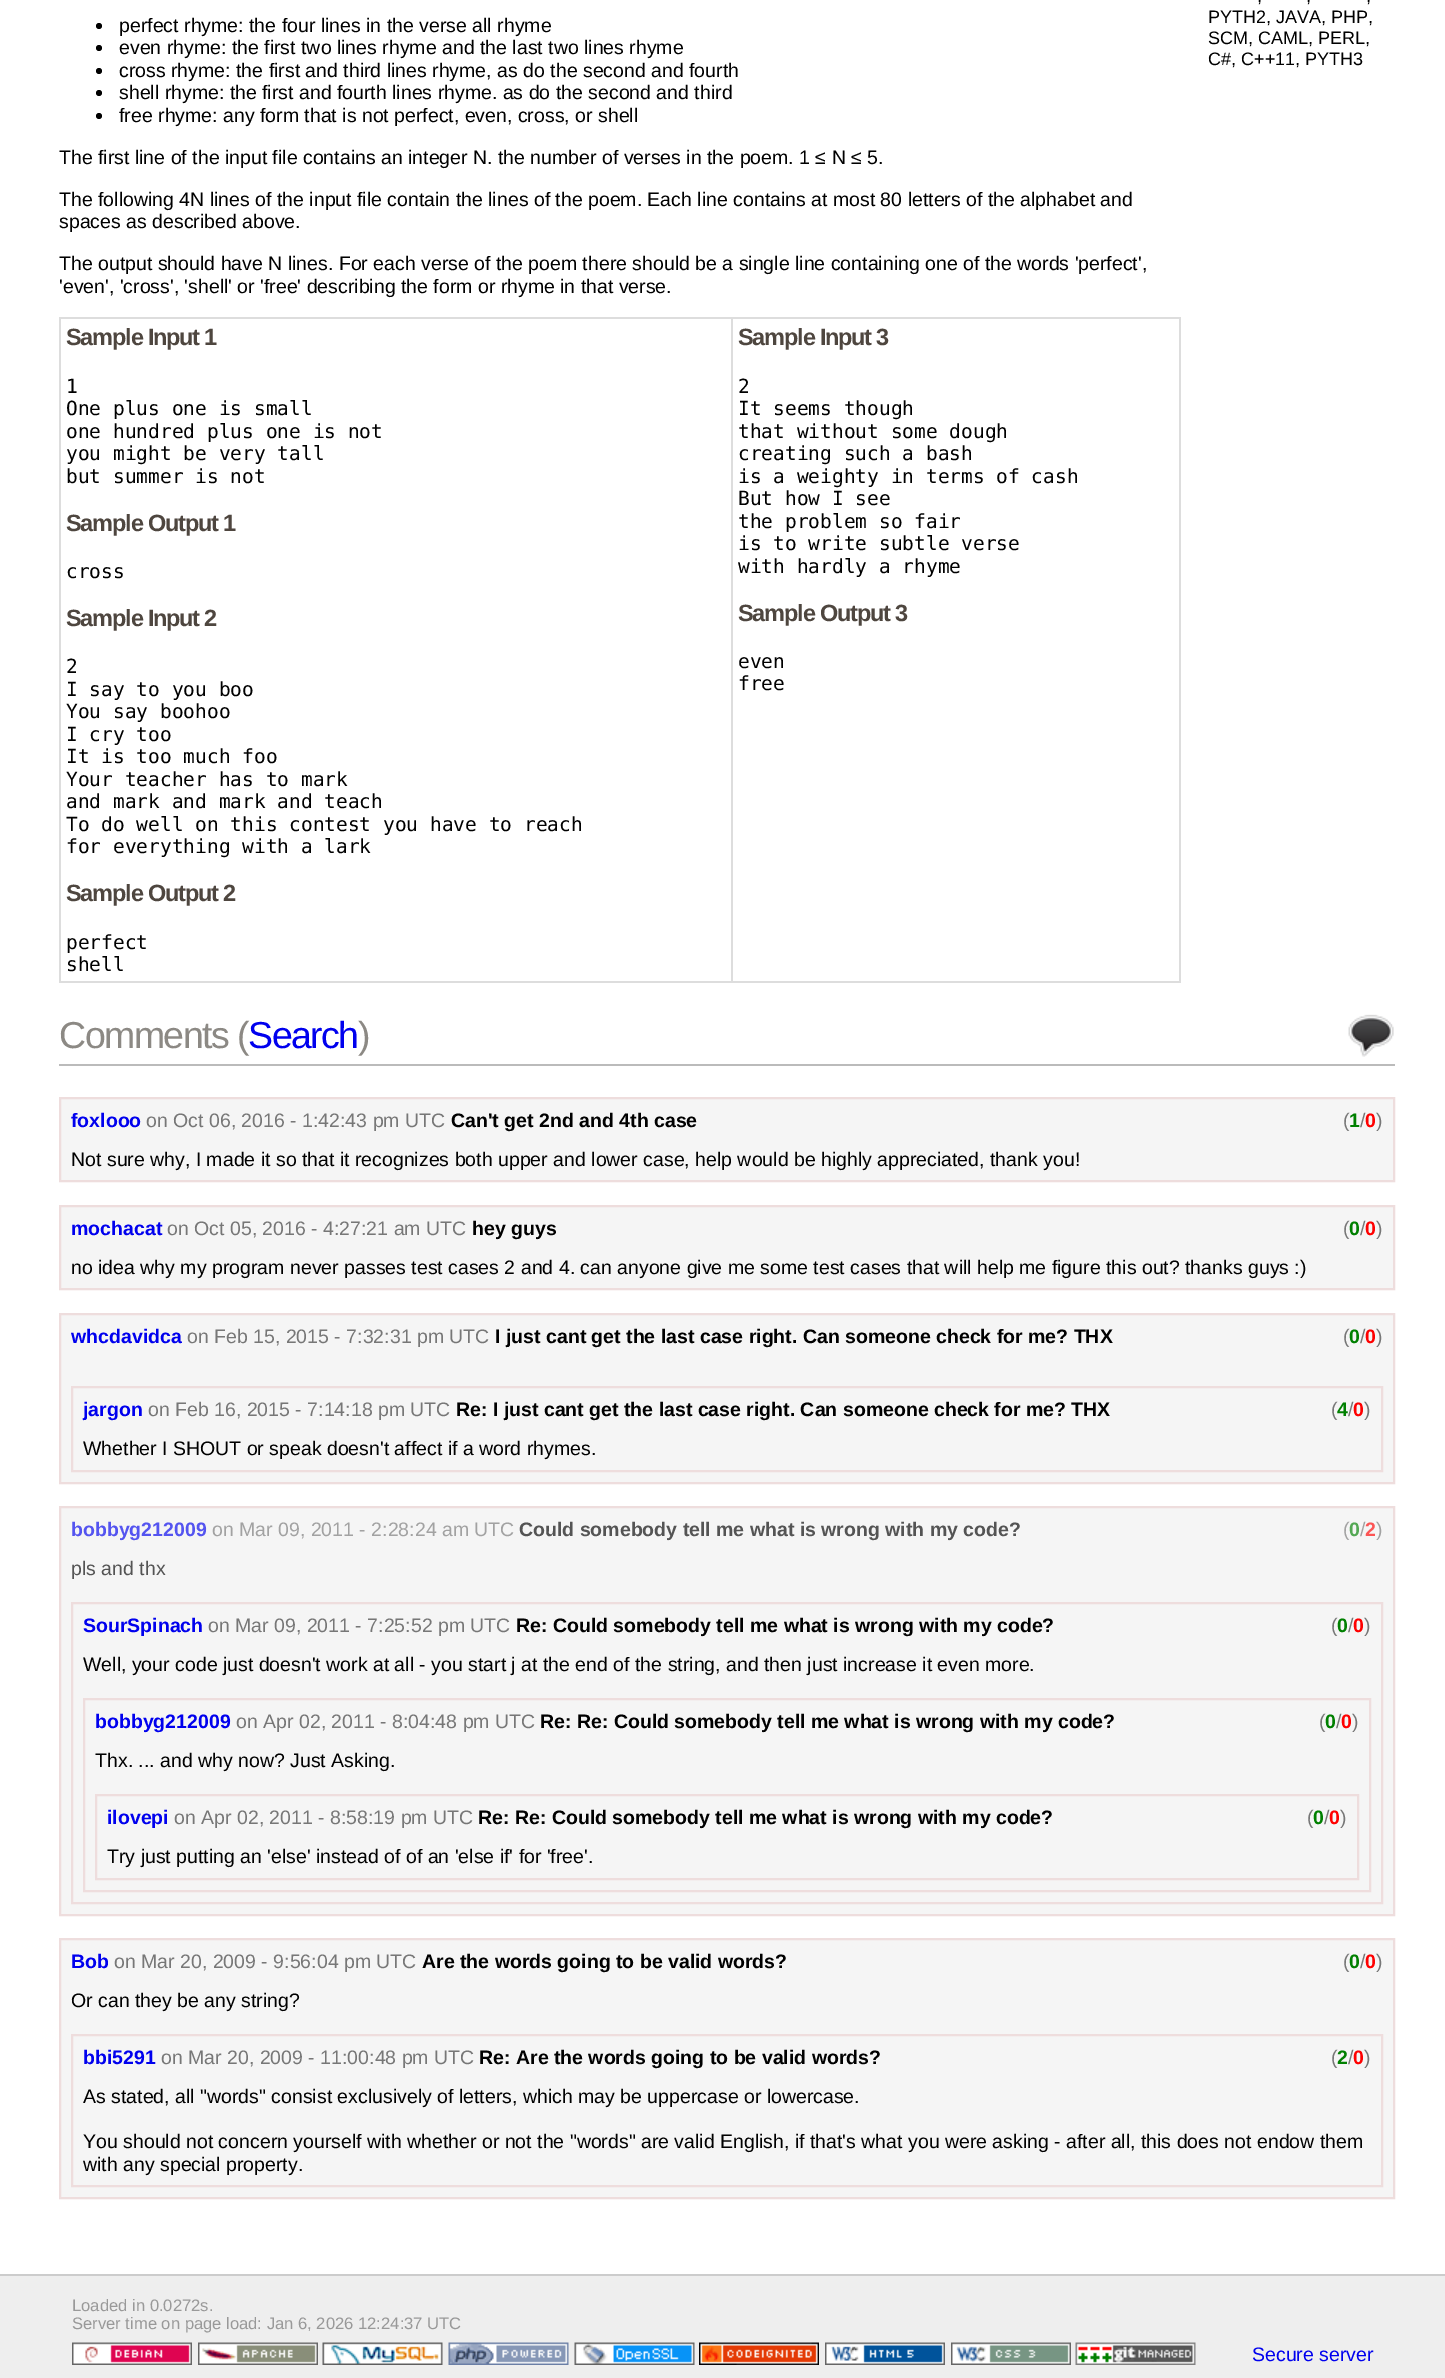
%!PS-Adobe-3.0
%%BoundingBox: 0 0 1445 2378
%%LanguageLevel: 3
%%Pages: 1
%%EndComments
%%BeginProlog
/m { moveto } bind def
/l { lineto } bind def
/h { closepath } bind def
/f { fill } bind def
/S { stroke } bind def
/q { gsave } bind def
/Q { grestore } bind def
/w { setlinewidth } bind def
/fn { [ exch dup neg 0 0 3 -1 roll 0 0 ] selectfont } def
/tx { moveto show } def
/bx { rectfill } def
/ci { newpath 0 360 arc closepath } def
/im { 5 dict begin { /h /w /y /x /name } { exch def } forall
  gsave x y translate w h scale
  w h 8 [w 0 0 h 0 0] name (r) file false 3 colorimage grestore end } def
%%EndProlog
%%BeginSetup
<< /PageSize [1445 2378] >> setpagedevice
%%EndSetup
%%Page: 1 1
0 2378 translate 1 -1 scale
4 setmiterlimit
0.933 setgray
0 0 1445 2378 bx
1 setgray
0 0 1445 2274 bx
0.8 setgray
0 2274 1445 2 bx
0 setgray
99 26 3 ci f
/LiberationSans-Regular 19.5 fn
(perfect rhyme: the four lines in the verse all rhyme) 119 32 tx
99 48 3 ci f
(even rhyme: the first two lines rhyme and the last two lines rhyme) 119 54 tx
99 71 3 ci f
(cross rhyme: the first and third lines rhyme, as do the second and fourth) 119 77 tx
99 93 3 ci f
(shell rhyme: the first and fourth lines rhyme. as do the second and third) 119 99 tx
99 116 3 ci f
(free rhyme: any form that is not perfect, even, cross, or shell) 119 122 tx
(The first line of the input file contains an integer N. the number of verses in the poem. 1 ≤ N ≤ 5.) 59 164 tx
(The following 4N lines of the input file contain the lines of the poem. Each line contains at most 80 letters of the alphabet and) 59 206 tx
(spaces as described above.) 59 228 tx
(The output should have N lines. For each verse of the poem there should be a single line containing one of the words 'perfect',) 59 270 tx
('even', 'cross', 'shell' or 'free' describing the form or rhyme in that verse.) 59 293 tx
0.867 setgray
59 981 1122 2 bx
59 317 2 666 bx
59 317 1122 2 bx
731 317 2 666 bx
/LiberationSans-Bold 23.5 fn
0.306 0.275 0.247 setrgbcolor
66 345 m -1.2 0 (Sample Input 1) ashow
/DejaVuSansMono-Regular 19.5 fn
0 setgray
(1) 66 393 tx
(One plus one is small) 66 415 tx
(one hundred plus one is not) 66 438 tx
(you might be very tall) 66 460 tx
(but summer is not) 66 483 tx
/LiberationSans-Bold 23.5 fn
0.306 0.275 0.247 setrgbcolor
66 531 m -1.2 0 (Sample Output 1) ashow
/DejaVuSansMono-Regular 19.5 fn
0 setgray
(cross) 66 578 tx
/LiberationSans-Bold 23.5 fn
0.306 0.275 0.247 setrgbcolor
66 626 m -1.2 0 (Sample Input 2) ashow
/DejaVuSansMono-Regular 19.5 fn
0 setgray
(2) 66 673 tx
(I say to you boo) 66 696 tx
(You say boohoo) 66 718 tx
(I cry too) 66 741 tx
(It is too much foo) 66 763 tx
(Your teacher has to mark) 66 786 tx
(and mark and mark and teach) 66 808 tx
(To do well on this contest you have to reach) 66 831 tx
(for everything with a lark) 66 853 tx
/LiberationSans-Bold 23.5 fn
0.306 0.275 0.247 setrgbcolor
66 901 m -1.2 0 (Sample Output 2) ashow
/DejaVuSansMono-Regular 19.5 fn
0 setgray
(perfect) 66 949 tx
(shell) 66 971 tx
0.867 setgray
1179 317 2 666 bx
/LiberationSans-Bold 23.5 fn
0.306 0.275 0.247 setrgbcolor
738 345 m -1.2 0 (Sample Input 3) ashow
/DejaVuSansMono-Regular 19.5 fn
0 setgray
(2) 738 393 tx
(It seems though) 738 415 tx
(that without some dough) 738 438 tx
(creating such a bash) 738 460 tx
(is a weighty in terms of cash) 738 483 tx
(But how I see) 738 505 tx
(the problem so fair) 738 528 tx
(is to write subtle verse) 738 550 tx
(with hardly a rhyme) 738 573 tx
/LiberationSans-Bold 23.5 fn
0.306 0.275 0.247 setrgbcolor
738 621 m -1.2 0 (Sample Output 3) ashow
/DejaVuSansMono-Regular 19.5 fn
0 setgray
(even) 738 668 tx
(free) 738 690 tx
/LiberationSans-Regular 18 fn
(,) 1257 2 tx
(,) 1306 2 tx
(,) 1366 2 tx
(PYTH2, JAVA, PHP,) 1208 23 tx
(SCM, CAML, PERL,) 1208 44 tx
(C#, C++11, PYTH3) 1208 65 tx
(image0.raw) 1348 1014 46 43 im
0.733 setgray
59 1064 1336 2 bx
/LiberationSans-Regular 37.5 fn
0.549 0.537 0.518 setrgbcolor
59 1048 m -1.5 0 (Comments \() ashow
0 0 0.933 setrgbcolor
248 1048 m -1.5 0 (Search) ashow
0.549 0.537 0.518 setrgbcolor
358 1048 m -1.5 0 (\)) ashow
0.961 setgray
60 1098 m 1394 1098 l 1394 1181 l 60 1181 l h q f Q
0.933 0.867 0.867 setrgbcolor
2 w
S
/LiberationSans-Bold 19.5 fn
0 0 0.933 setrgbcolor
(foxlooo) 71 1127 tx
/LiberationSans-Regular 19.5 fn
0.467 setgray
(on Oct 06, 2016 - 1:42:43 pm UTC) 146 1127 tx
/LiberationSans-Bold 19.5 fn
0 setgray
(Can't get 2nd and 4th case) 451 1127 tx
/LiberationSans-Regular 19.5 fn
0.467 setgray
(\() 1343 1127 tx
/LiberationSans-Bold 19.5 fn
0 0.502 0 setrgbcolor
(1) 1349 1127 tx
/LiberationSans-Regular 19.5 fn
0.467 setgray
(/) 1360 1127 tx
/LiberationSans-Bold 19.5 fn
1 0 0 setrgbcolor
(0) 1365 1127 tx
/LiberationSans-Regular 19.5 fn
0.467 setgray
(\)) 1376 1127 tx
0 setgray
(Not sure why, I made it so that it recognizes both upper and lower case, help would be highly appreciated, thank you!) 71 1166 tx
0.961 setgray
60 1206 m 1394 1206 l 1394 1289 l 60 1289 l h q f Q
0.933 0.867 0.867 setrgbcolor
S
/LiberationSans-Bold 19.5 fn
0 0 0.933 setrgbcolor
(mochacat) 71 1235 tx
/LiberationSans-Regular 19.5 fn
0.467 setgray
(on Oct 05, 2016 - 4:27:21 am UTC) 167 1235 tx
/LiberationSans-Bold 19.5 fn
0 setgray
(hey guys) 472 1235 tx
/LiberationSans-Regular 19.5 fn
0.467 setgray
(\() 1343 1235 tx
/LiberationSans-Bold 19.5 fn
0 0.502 0 setrgbcolor
(0) 1349 1235 tx
/LiberationSans-Regular 19.5 fn
0.467 setgray
(/) 1360 1235 tx
/LiberationSans-Bold 19.5 fn
1 0 0 setrgbcolor
(0) 1365 1235 tx
/LiberationSans-Regular 19.5 fn
0.467 setgray
(\)) 1376 1235 tx
0 setgray
(no idea why my program never passes test cases 2 and 4. can anyone give me some test cases that will help me figure this out? thanks guys :\)) 71 1274 tx
0.961 setgray
60 1314 m 1394 1314 l 1394 1483 l 60 1483 l h q f Q
0.933 0.867 0.867 setrgbcolor
S
/LiberationSans-Bold 19.5 fn
0 0 0.933 setrgbcolor
(whcdavidca) 71 1343 tx
/LiberationSans-Regular 19.5 fn
0.467 setgray
(on Feb 15, 2015 - 7:32:31 pm UTC) 187 1343 tx
/LiberationSans-Bold 19.5 fn
0 setgray
(I just cant get the last case right. Can someone check for me? THX) 495 1343 tx
/LiberationSans-Regular 19.5 fn
0.467 setgray
(\() 1343 1343 tx
/LiberationSans-Bold 19.5 fn
0 0.502 0 setrgbcolor
(0) 1349 1343 tx
/LiberationSans-Regular 19.5 fn
0.467 setgray
(/) 1360 1343 tx
/LiberationSans-Bold 19.5 fn
1 0 0 setrgbcolor
(0) 1365 1343 tx
/LiberationSans-Regular 19.5 fn
0.467 setgray
(\)) 1376 1343 tx
0.933 0.867 0.867 setrgbcolor
72 1387 1310 84 rectstroke
/LiberationSans-Bold 19.5 fn
0 0 0.933 setrgbcolor
(jargon) 83 1416 tx
/LiberationSans-Regular 19.5 fn
0.467 setgray
(on Feb 16, 2015 - 7:14:18 pm UTC) 148 1416 tx
/LiberationSans-Bold 19.5 fn
0 setgray
(Re: I just cant get the last case right. Can someone check for me? THX) 456 1416 tx
/LiberationSans-Regular 19.5 fn
0.467 setgray
(\() 1331 1416 tx
/LiberationSans-Bold 19.5 fn
0 0.502 0 setrgbcolor
(4) 1337 1416 tx
/LiberationSans-Regular 19.5 fn
0.467 setgray
(/) 1348 1416 tx
/LiberationSans-Bold 19.5 fn
1 0 0 setrgbcolor
(0) 1353 1416 tx
/LiberationSans-Regular 19.5 fn
0.467 setgray
(\)) 1364 1416 tx
0 setgray
(Whether I SHOUT or speak doesn't affect if a word rhymes.) 83 1455 tx
0.961 setgray
60 1507 m 1394 1507 l 1394 1915 l 60 1915 l h q f Q
0.933 0.867 0.867 setrgbcolor
S
/LiberationSans-Bold 19.5 fn
0.329 0.329 0.941 setrgbcolor
(bobbyg212009) 71 1536 tx
/LiberationSans-Regular 19.5 fn
0.635 setgray
(on Mar 09, 2011 - 2:28:24 am UTC) 212 1536 tx
/LiberationSans-Bold 19.5 fn
0.329 setgray
(Could somebody tell me what is wrong with my code?) 519 1536 tx
/LiberationSans-Regular 19.5 fn
0.635 setgray
(\() 1343 1536 tx
/LiberationSans-Bold 19.5 fn
0.329 0.659 0.329 setrgbcolor
(0) 1349 1536 tx
/LiberationSans-Regular 19.5 fn
0.635 setgray
(/) 1360 1536 tx
/LiberationSans-Bold 19.5 fn
0.988 0.329 0.329 setrgbcolor
(2) 1365 1536 tx
/LiberationSans-Regular 19.5 fn
0.635 setgray
(\)) 1376 1536 tx
0.329 setgray
(pls and thx) 71 1575 tx
0.933 0.867 0.867 setrgbcolor
72 1603 1310 300 rectstroke
/LiberationSans-Bold 19.5 fn
0 0 0.933 setrgbcolor
(SourSpinach) 83 1632 tx
/LiberationSans-Regular 19.5 fn
0.467 setgray
(on Mar 09, 2011 - 7:25:52 pm UTC) 208 1632 tx
/LiberationSans-Bold 19.5 fn
0 setgray
(Re: Could somebody tell me what is wrong with my code?) 516 1632 tx
/LiberationSans-Regular 19.5 fn
0.467 setgray
(\() 1331 1632 tx
/LiberationSans-Bold 19.5 fn
0 0.502 0 setrgbcolor
(0) 1337 1632 tx
/LiberationSans-Regular 19.5 fn
0.467 setgray
(/) 1348 1632 tx
/LiberationSans-Bold 19.5 fn
1 0 0 setrgbcolor
(0) 1353 1632 tx
/LiberationSans-Regular 19.5 fn
0.467 setgray
(\)) 1364 1632 tx
0 setgray
(Well, your code just doesn't work at all - you start j at the end of the string, and then just increase it even more.) 83 1671 tx
0.933 0.867 0.867 setrgbcolor
84 1699 1286 192 rectstroke
/LiberationSans-Bold 19.5 fn
0 0 0.933 setrgbcolor
(bobbyg212009) 95 1728 tx
/LiberationSans-Regular 19.5 fn
0.467 setgray
(on Apr 02, 2011 - 8:04:48 pm UTC) 236 1728 tx
/LiberationSans-Bold 19.5 fn
0 setgray
(Re: Re: Could somebody tell me what is wrong with my code?) 540 1728 tx
/LiberationSans-Regular 19.5 fn
0.467 setgray
(\() 1319 1728 tx
/LiberationSans-Bold 19.5 fn
0 0.502 0 setrgbcolor
(0) 1325 1728 tx
/LiberationSans-Regular 19.5 fn
0.467 setgray
(/) 1336 1728 tx
/LiberationSans-Bold 19.5 fn
1 0 0 setrgbcolor
(0) 1341 1728 tx
/LiberationSans-Regular 19.5 fn
0.467 setgray
(\)) 1352 1728 tx
0 setgray
(Thx. ... and why now? Just Asking.) 95 1767 tx
0.933 0.867 0.867 setrgbcolor
96 1795 1262 84 rectstroke
/LiberationSans-Bold 19.5 fn
0 0 0.933 setrgbcolor
(ilovepi) 107 1824 tx
/LiberationSans-Regular 19.5 fn
0.467 setgray
(on Apr 02, 2011 - 8:58:19 pm UTC) 174 1824 tx
/LiberationSans-Bold 19.5 fn
0 setgray
(Re: Re: Could somebody tell me what is wrong with my code?) 478 1824 tx
/LiberationSans-Regular 19.5 fn
0.467 setgray
(\() 1307 1824 tx
/LiberationSans-Bold 19.5 fn
0 0.502 0 setrgbcolor
(0) 1313 1824 tx
/LiberationSans-Regular 19.5 fn
0.467 setgray
(/) 1324 1824 tx
/LiberationSans-Bold 19.5 fn
1 0 0 setrgbcolor
(0) 1329 1824 tx
/LiberationSans-Regular 19.5 fn
0.467 setgray
(\)) 1340 1824 tx
0 setgray
(Try just putting an 'else' instead of of an 'else if' for 'free'.) 107 1863 tx
0.961 setgray
60 1939 m 1394 1939 l 1394 2198 l 60 2198 l h q f Q
0.933 0.867 0.867 setrgbcolor
S
/LiberationSans-Bold 19.5 fn
0 0 0.933 setrgbcolor
(Bob) 71 1968 tx
/LiberationSans-Regular 19.5 fn
0.467 setgray
(on Mar 20, 2009 - 9:56:04 pm UTC) 114 1968 tx
/LiberationSans-Bold 19.5 fn
0 setgray
(Are the words going to be valid words?) 422 1968 tx
/LiberationSans-Regular 19.5 fn
0.467 setgray
(\() 1343 1968 tx
/LiberationSans-Bold 19.5 fn
0 0.502 0 setrgbcolor
(0) 1349 1968 tx
/LiberationSans-Regular 19.5 fn
0.467 setgray
(/) 1360 1968 tx
/LiberationSans-Bold 19.5 fn
1 0 0 setrgbcolor
(0) 1365 1968 tx
/LiberationSans-Regular 19.5 fn
0.467 setgray
(\)) 1376 1968 tx
0 setgray
(Or can they be any string?) 71 2007 tx
0.933 0.867 0.867 setrgbcolor
72 2035 1310 151 rectstroke
/LiberationSans-Bold 19.5 fn
0 0 0.933 setrgbcolor
(bbi5291) 83 2064 tx
/LiberationSans-Regular 19.5 fn
0.467 setgray
(on Mar 20, 2009 - 11:00:48 pm UTC) 161 2064 tx
/LiberationSans-Bold 19.5 fn
0 setgray
(Re: Are the words going to be valid words?) 479 2064 tx
/LiberationSans-Regular 19.5 fn
0.467 setgray
(\() 1331 2064 tx
/LiberationSans-Bold 19.5 fn
0 0.502 0 setrgbcolor
(2) 1337 2064 tx
/LiberationSans-Regular 19.5 fn
0.467 setgray
(/) 1348 2064 tx
/LiberationSans-Bold 19.5 fn
1 0 0 setrgbcolor
(0) 1353 2064 tx
/LiberationSans-Regular 19.5 fn
0.467 setgray
(\)) 1364 2064 tx
0 setgray
(As stated, all "words" consist exclusively of letters, which may be uppercase or lowercase.) 83 2103 tx
(You should not concern yourself with whether or not the "words" are valid English, if that's what you were asking - after all, this does not endow them) 83 2148 tx
(with any special property.) 83 2171 tx
/LiberationSans-Regular 16.6 fn
0.6 setgray
(Loaded in 0.0272s.) 72 2311 tx
(Server time on page load: Jan 6, 2026 12:24:37 UTC) 72 2329 tx
(image1.raw) 72 2342 120 23 im
(image2.raw) 198 2342 120 23 im
(image3.raw) 322 2342 121 23 im
(image4.raw) 448 2342 121 23 im
(image5.raw) 574 2342 121 23 im
(image6.raw) 699 2342 120 23 im
(image7.raw) 825 2342 120 23 im
(image8.raw) 951 2342 120 23 im
(image9.raw) 1075 2342 121 23 im
/LiberationSans-Regular 19.5 fn
0 0 0.933 setrgbcolor
(Secure server) 1252 2361 tx
showpage
%%EOF
